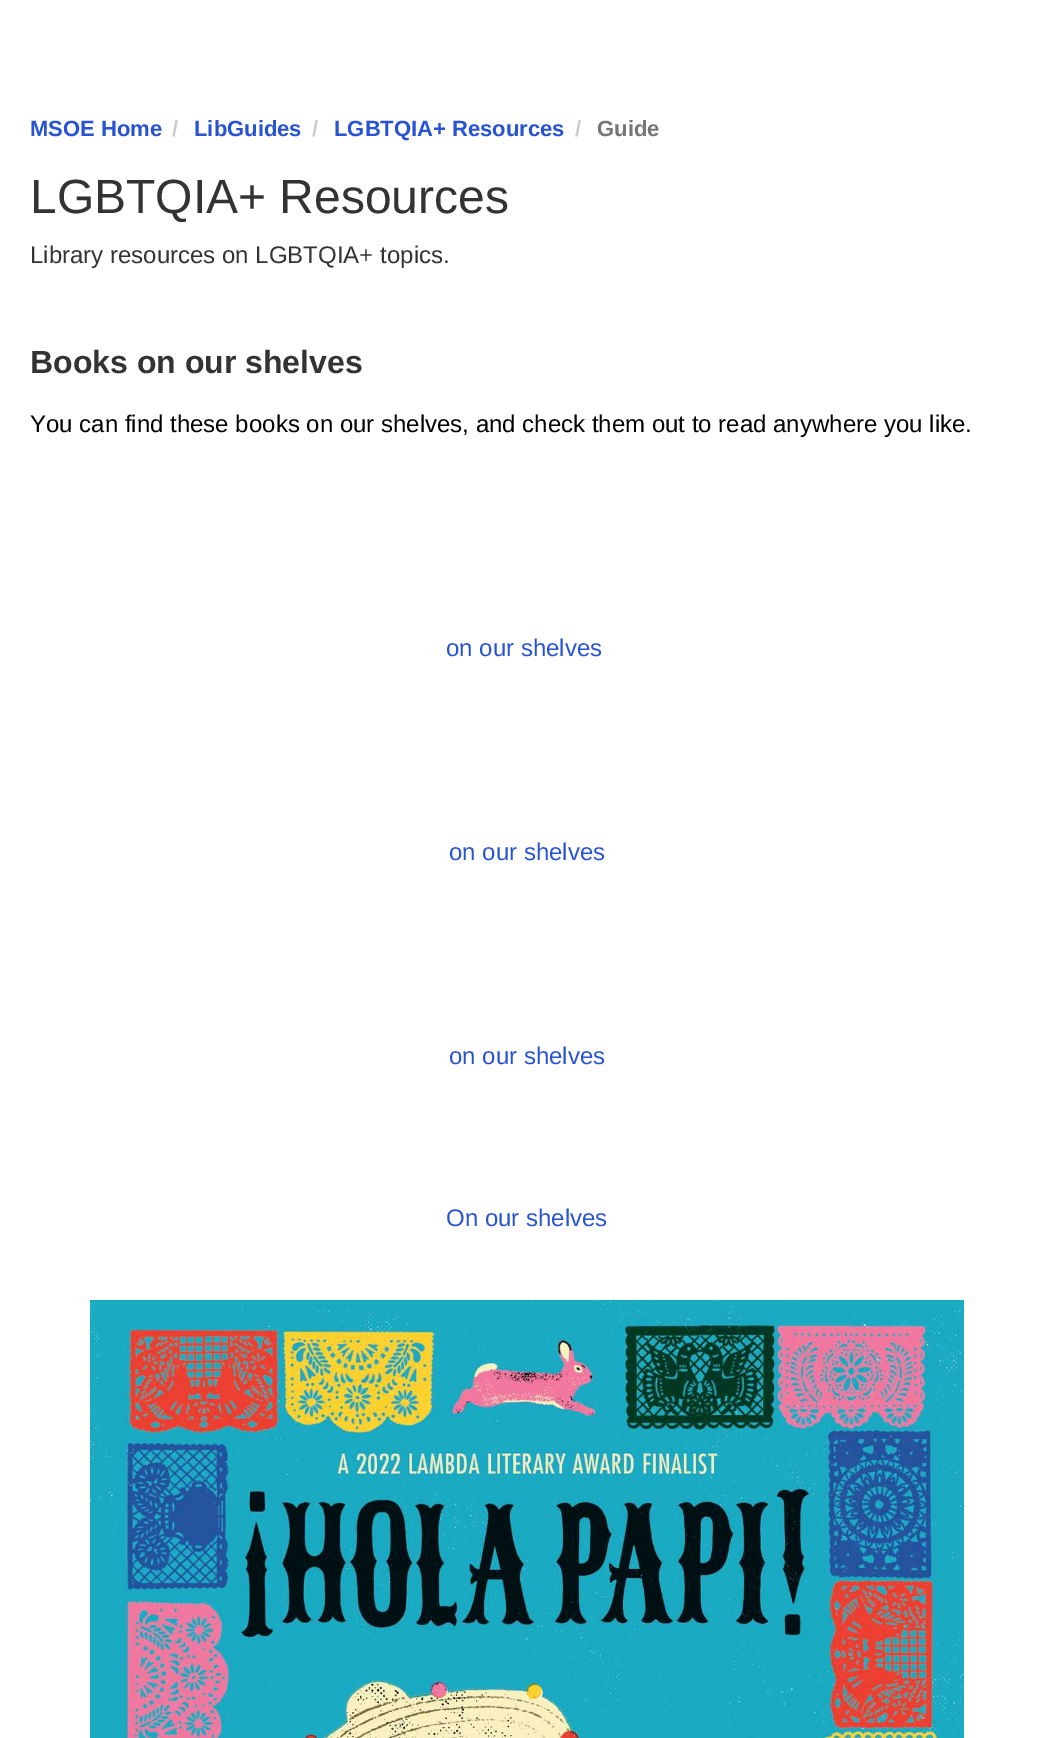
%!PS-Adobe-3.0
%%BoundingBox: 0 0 1054 1738
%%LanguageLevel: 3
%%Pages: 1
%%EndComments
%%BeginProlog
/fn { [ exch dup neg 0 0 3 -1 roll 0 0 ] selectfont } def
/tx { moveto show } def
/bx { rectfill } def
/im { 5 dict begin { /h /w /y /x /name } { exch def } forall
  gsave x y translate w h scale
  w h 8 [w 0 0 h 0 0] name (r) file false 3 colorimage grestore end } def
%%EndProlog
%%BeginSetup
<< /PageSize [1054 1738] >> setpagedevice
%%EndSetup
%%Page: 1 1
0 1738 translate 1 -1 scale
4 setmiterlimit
1 setgray
0 0 1054 1738 bx
/LiberationSans-Bold 22 fn
0.161 0.329 0.82 setrgbcolor
(MSOE Home) 30 136 tx
0.8 setgray
(/) 172 136 tx
0.161 0.329 0.82 setrgbcolor
(LibGuides) 194 136 tx
0.8 setgray
(/) 312 136 tx
0.161 0.329 0.82 setrgbcolor
(LGBTQIA+ Resources) 334 136 tx
0.8 setgray
(/) 575 136 tx
0.463 setgray
(Guide) 597 136 tx
/LiberationSans-Regular 48 fn
0.2 setgray
(LGBTQIA+ Resources) 30 213 tx
/LiberationSans-Regular 24 fn
(Library resources on LGBTQIA+ topics.) 30 263 tx
/LiberationSans-Bold 32 fn
(Books on our shelves) 30 373 tx
/LiberationSans-Regular 24 fn
0 setgray
(You can find these books on our shelves, and check them out to read anywhere you like.) 30 432 tx
0.161 0.329 0.82 setrgbcolor
(on our shelves) 446 656 tx
(on our shelves) 449 860 tx
(on our shelves) 449 1064 tx
(On our shelves) 446 1226 tx
(image0.raw) 90 1300 874 438 im
showpage
%%EOF
